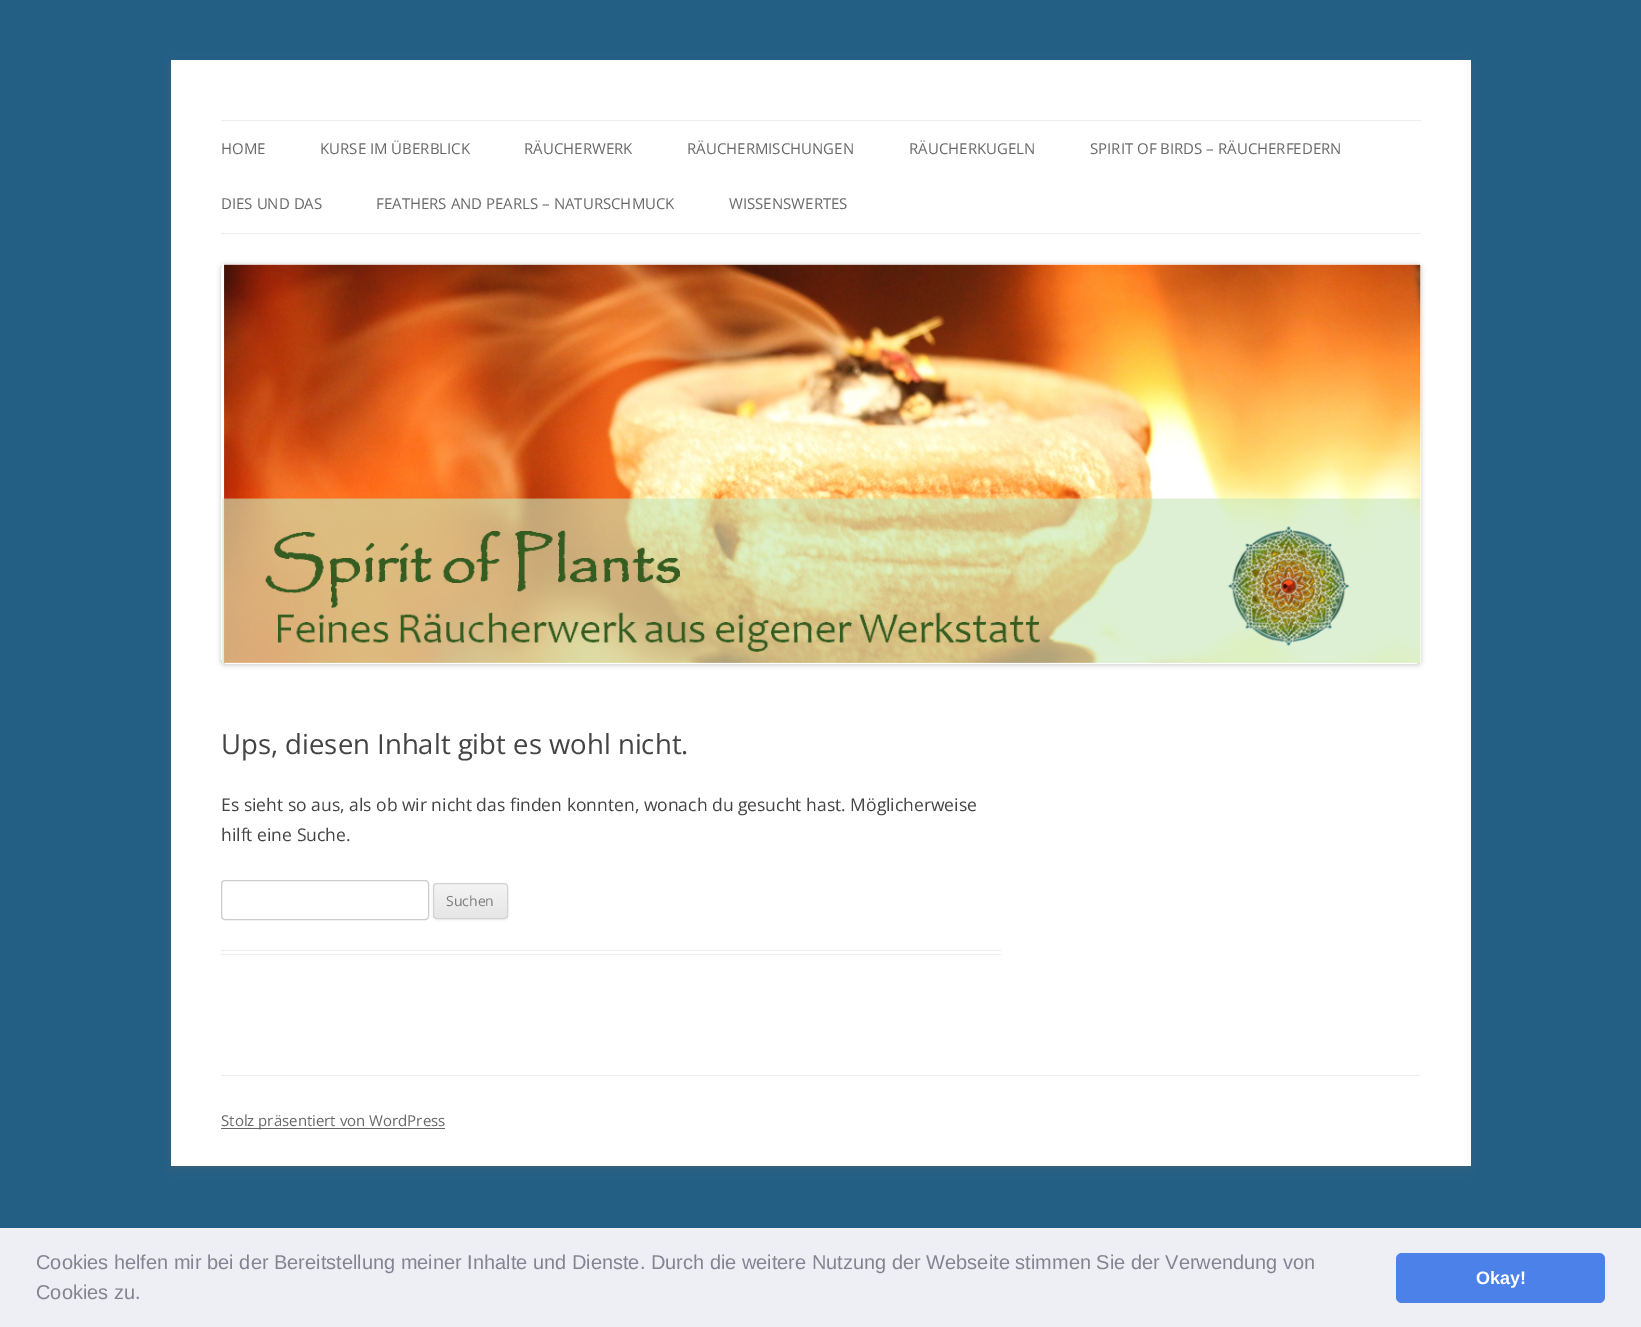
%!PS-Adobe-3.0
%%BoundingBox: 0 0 1641 1327
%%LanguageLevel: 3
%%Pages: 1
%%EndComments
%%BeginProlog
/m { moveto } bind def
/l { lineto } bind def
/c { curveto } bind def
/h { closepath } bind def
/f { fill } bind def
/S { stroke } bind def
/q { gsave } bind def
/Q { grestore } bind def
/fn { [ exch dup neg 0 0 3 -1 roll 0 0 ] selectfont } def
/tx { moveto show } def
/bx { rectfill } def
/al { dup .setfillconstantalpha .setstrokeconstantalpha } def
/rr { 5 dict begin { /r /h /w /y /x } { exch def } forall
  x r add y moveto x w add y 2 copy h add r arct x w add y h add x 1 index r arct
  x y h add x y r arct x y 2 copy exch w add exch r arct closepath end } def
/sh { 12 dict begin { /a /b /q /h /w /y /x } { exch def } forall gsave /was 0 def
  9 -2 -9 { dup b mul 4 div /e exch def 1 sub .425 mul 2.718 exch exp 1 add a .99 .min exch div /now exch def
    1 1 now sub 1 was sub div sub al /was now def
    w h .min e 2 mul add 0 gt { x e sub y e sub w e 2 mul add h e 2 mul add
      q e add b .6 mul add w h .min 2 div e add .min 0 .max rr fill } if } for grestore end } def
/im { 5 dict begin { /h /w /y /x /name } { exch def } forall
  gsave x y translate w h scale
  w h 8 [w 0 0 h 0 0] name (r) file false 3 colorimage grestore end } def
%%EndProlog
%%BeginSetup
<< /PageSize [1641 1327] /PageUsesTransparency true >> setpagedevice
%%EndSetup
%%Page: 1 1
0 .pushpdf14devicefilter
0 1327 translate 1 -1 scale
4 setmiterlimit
0.137 0.373 0.518 setrgbcolor
0 0 1641 1327 bx
0.392 setgray
171 63 1300 1106 0 4 0.3 sh
1 setgray
171 60 1300 1106 bx
0.929 setgray
221 120 1200 1 bx
221 233 1200 1 bx
/OpenSans-Regular 15 fn
0.408 setgray
(HOME) 221 154 tx
(KURSE IM ÜBERBLICK) 320 154 tx
(RÄUCHERWERK) 524 154 tx
(RÄUCHERMISCHUNGEN) 687 154 tx
(RÄUCHERKUGELN) 909 154 tx
(SPIRIT OF BIRDS – RÄUCHERFEDERN) 1090 154 tx
(DIES UND DAS) 221 209 tx
(FEATHERS AND PEARLS – NATURSCHMUCK) 376 209 tx
(WISSENSWERTES) 729 209 tx
q
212 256 m 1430 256 l 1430 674 l 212 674 l h 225 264 m 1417 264 l 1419 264 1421 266 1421 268 c 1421 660 l 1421 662 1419 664 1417 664 c 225 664 l 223 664 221 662 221 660 c 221 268 l 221 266 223 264 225 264 c h eoclip newpath
0 setgray
221 265 1200 400 4 2.5 0.2 sh
Q
(image0.raw) 222 264 1199 399 im
0.929 setgray
221 950 780 1 bx
221 954 780 1 bx
/OpenSans-Regular 27.5 fn
0.267 setgray
(Ups, diesen Inhalt gibt es wohl nicht.) 221 754 tx
/OpenSans-Regular 17.5 fn
(Es sieht so aus, als ob wir nicht das finden konnten, wonach du gesucht hast. Möglicherweise) 221 811 tx
(hilft eine Suche.) 221 841 tx
0.8 setgray
221.5 880.5 207 39 3.5 rr S
0.251 setgray
433 884 75 36 4 1 0.1 sh
q
433 883 75 36 4 rr clip newpath
q 433 884 m 508 884 l 508 918 l 433 918 l h clip newpath
<< /ShadingType 2 /ColorSpace /DeviceRGB /Coords [470 884 470 918] /Extend [true true] /Function << /FunctionType 2 /Domain [0 1] /C0 [0.957 0.957 0.957] /C1 [0.902 0.902 0.902] /N 1 >> >> shfill Q
Q
0.824 setgray
433.5 883.5 74 35 3.5 rr S
/OpenSans-Regular 14 fn
0.486 setgray
(Suchen) 446 906 tx
0.929 setgray
221 1075 1200 1 bx
0.408 setgray
221 1128 224 1 bx
/OpenSans-Regular 15 fn
(Stolz präsentiert von WordPress) 221 1126 tx
0.929 0.937 0.961 setrgbcolor
0 1228 1641 99 bx
/LiberationSans-Regular 20 fn
0.514 0.514 0.569 setrgbcolor
(Cookies helfen mir bei der Bereitstellung meiner Inhalte und Dienste. Durch die weitere Nutzung der Webseite stimmen Sie der Verwendung von) 36 1269 tx
(Cookies zu.) 36 1299 tx
0.294 0.506 0.91 setrgbcolor
1396 1253 209 50 6 rr f
/LiberationSans-Bold 18 fn
1 setgray
(Okay!) 1476 1284 tx
.poppdf14devicefilter showpage
%%EOF
